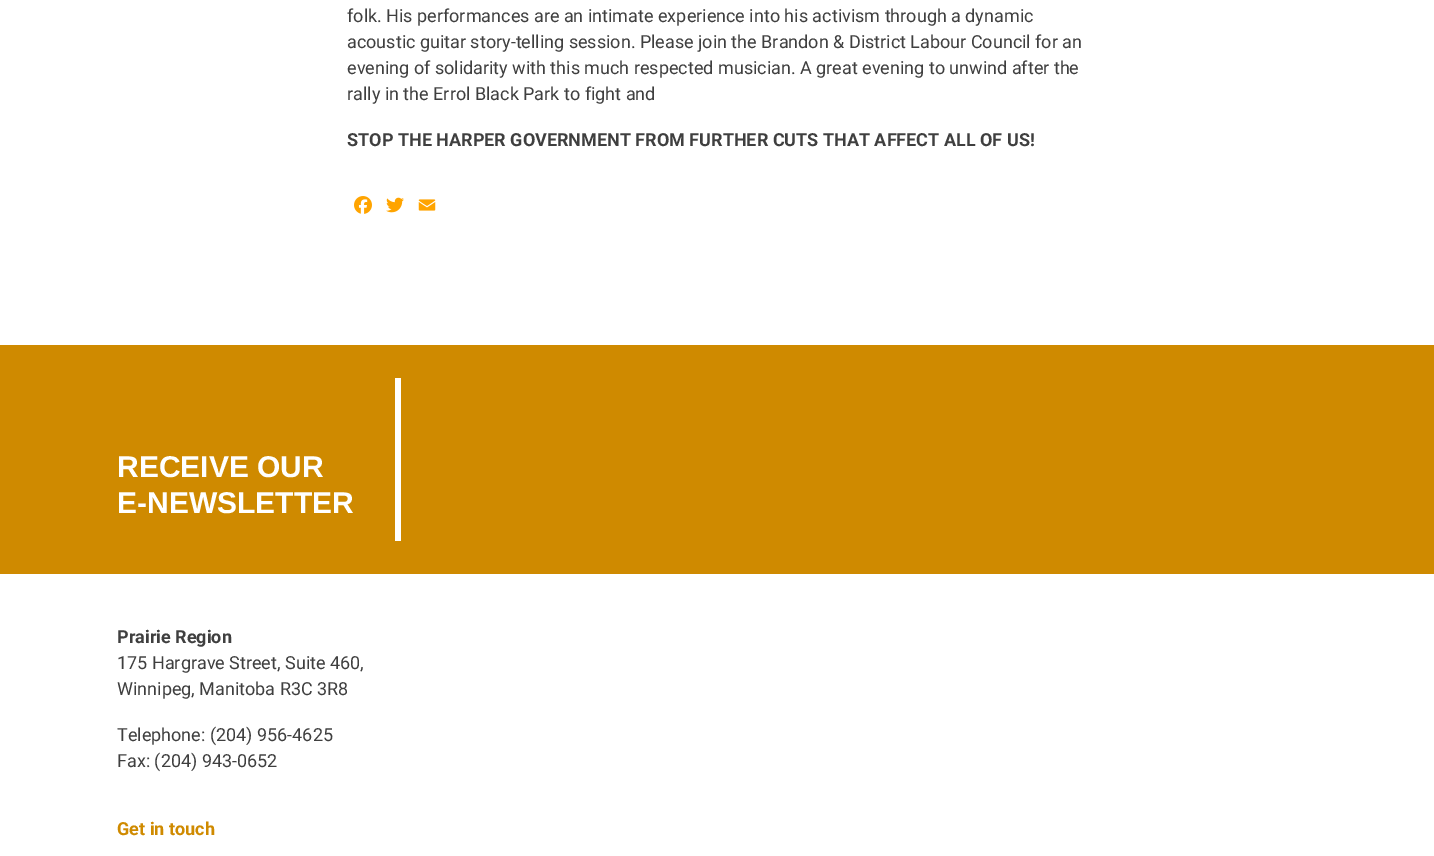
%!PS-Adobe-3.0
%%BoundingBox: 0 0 1434 856
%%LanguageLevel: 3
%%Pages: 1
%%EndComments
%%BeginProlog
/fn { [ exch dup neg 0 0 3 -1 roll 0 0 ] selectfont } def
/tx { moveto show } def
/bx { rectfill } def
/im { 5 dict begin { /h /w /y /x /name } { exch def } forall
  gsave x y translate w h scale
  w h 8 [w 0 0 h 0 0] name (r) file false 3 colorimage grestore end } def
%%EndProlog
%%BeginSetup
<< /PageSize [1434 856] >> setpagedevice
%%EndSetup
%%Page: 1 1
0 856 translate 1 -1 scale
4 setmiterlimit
1 setgray
0 0 1434 856 bx
/Roboto-Regular 18 fn
0.247 setgray
(folk. His performances are an intimate experience into his activism through a dynamic) 347 22 tx
(acoustic guitar story-telling session. Please join the Brandon & District Labour Council for an) 347 48 tx
(evening of solidarity with this much respected musician. A great evening to unwind after the) 347 74 tx
(rally in the Errol Black Park to fight and) 347 100 tx
/Roboto-Bold 18 fn
(STOP THE HARPER GOVERNMENT FROM FURTHER CUTS THAT AFFECT ALL OF US!) 347 146 tx
(image0.raw) 354 196 18 18 im
(image1.raw) 386 197 18 16 im
(image2.raw) 418 199 18 12 im
0.812 0.541 0 setrgbcolor
0 345 1434 229 bx
/LiberationSans-Bold 30 fn
1 setgray
(RECEIVE OUR) 117 477 tx
(E-NEWSLETTER) 117 513 tx
395 378 6 163 bx
/Roboto-Bold 18 fn
0.247 setgray
(Prairie Region) 117 643 tx
/Roboto-Regular 18 fn
(175 Hargrave Street, Suite 460,) 117 669 tx
(Winnipeg, Manitoba R3C 3R8) 117 695 tx
(Telephone: \(204\) 956-4625) 117 741 tx
(Fax: \(204\) 943-0652) 117 767 tx
/Roboto-Bold 18 fn
0.812 0.541 0 setrgbcolor
(Get in touch) 117 835 tx
showpage
%%EOF
